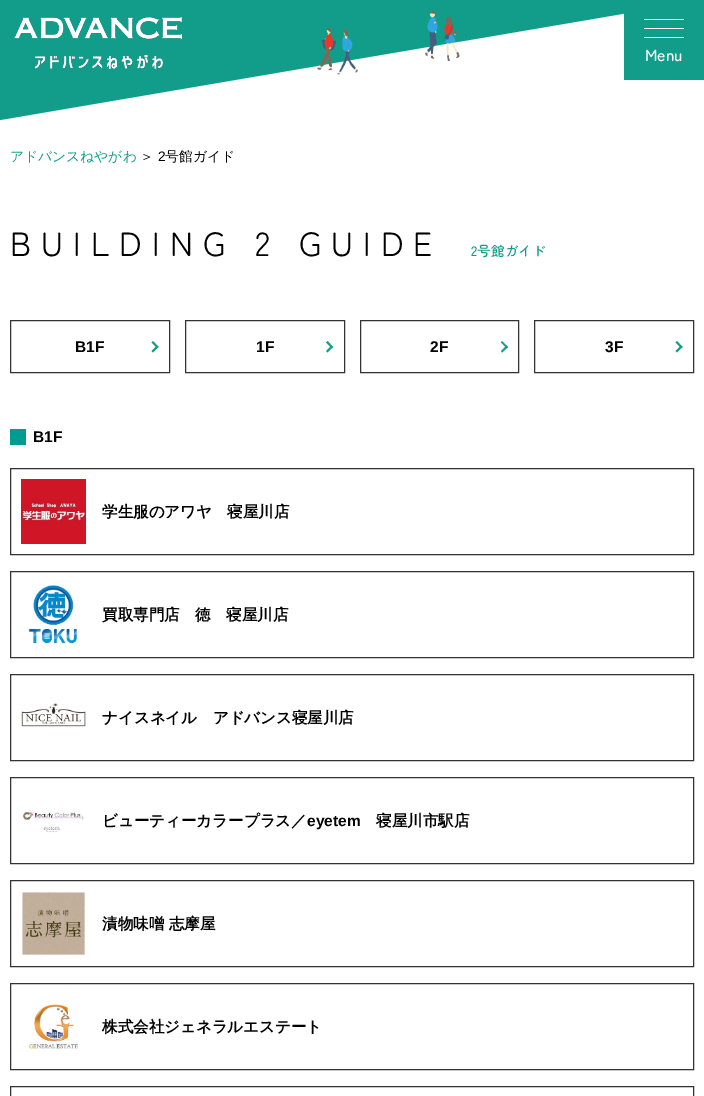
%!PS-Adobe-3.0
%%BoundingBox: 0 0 704 1096
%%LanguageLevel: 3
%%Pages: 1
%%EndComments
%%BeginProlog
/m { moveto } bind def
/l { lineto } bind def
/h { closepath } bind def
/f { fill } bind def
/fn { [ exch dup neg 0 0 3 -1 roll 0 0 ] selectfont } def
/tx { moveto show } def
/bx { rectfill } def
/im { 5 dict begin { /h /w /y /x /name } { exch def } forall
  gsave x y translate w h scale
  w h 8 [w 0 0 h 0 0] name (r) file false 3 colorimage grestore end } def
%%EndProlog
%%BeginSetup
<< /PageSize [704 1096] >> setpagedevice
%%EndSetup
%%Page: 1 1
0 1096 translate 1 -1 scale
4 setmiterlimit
1 setgray
0 0 704 1096 bx
0.071 0.616 0.541 setrgbcolor
0 0 m 0 120 l 704 0 l h f
(image0.raw) 14 17 168 52 im
(image1.raw) 317 11 143 64 im
624 0 80 80 bx
1 setgray
644 19 40 1 bx
644 28 40 1 bx
644 37 40 1 bx
/ZenMaruGothic-Medium 16 fn
(Menu) 645 61 tx
/WenQuanYiZenHei-Medium 13.75 fn
0.071 0.616 0.541 setrgbcolor
(アドバンスねやがわ) 10 161 tx
0 setgray
(＞) 140 161 tx
/LiberationSans-Regular 13.75 fn
(2) 158 161 tx
/WenQuanYiZenHei-Medium 13.75 fn
(号館ガイド) 165 161 tx
/ZenMaruGothic-Regular 33.5 fn
10 256 m 10 0 (BUILDING 2 GUIDE) ashow
/ZenMaruGothic-Medium 13.75 fn
0.071 0.616 0.541 setrgbcolor
(2号館ガイド) 471 256 tx
0.2 setgray
10.5 320.5 159 52 rectstroke
/LiberationSans-Bold 15.5 fn
0 setgray
(B1F) 75 352 tx
0.071 0.616 0.541 setrgbcolor
153 341 m 158.5 347 l 157 348 l 151.5 342.5 l h f
157 345.5 m 158.5 347 l 153 352.5 l 151.5 351 l h f
0.2 setgray
185.5 320.5 159 52 rectstroke
0 setgray
(1F) 256 352 tx
0.071 0.616 0.541 setrgbcolor
327.5 341 m 333 347 l 331.5 348 l 326 342.5 l h f
331.5 345.5 m 333 347 l 327.5 352.5 l 326 351 l h f
0.2 setgray
360.5 320.5 158 52 rectstroke
0 setgray
(2F) 430 352 tx
0.071 0.616 0.541 setrgbcolor
502 341 m 508 347 l 506.5 348 l 501 342.5 l h f
506.5 345.5 m 508 347 l 502 352.5 l 501 351 l h f
0.2 setgray
534.5 320.5 159 52 rectstroke
0 setgray
(3F) 605 352 tx
0.071 0.616 0.541 setrgbcolor
677 341 m 682.5 347 l 681 348 l 675.5 342.5 l h f
681 345.5 m 682.5 347 l 677 352.5 l 675.5 351 l h f
0 0.612 0.58 setrgbcolor
10 429 16 16 bx
0 setgray
(B1F) 33 442 tx
0.2 setgray
10.5 468.5 683 86 rectstroke
(image2.raw) 21 479 65 65 im
/WenQuanYiZenHei-Bold 15.5 fn
0 setgray
(学生服のアワヤ　寝屋川店) 102 517 tx
0.2 setgray
10.5 571.5 683 86 rectstroke
(image3.raw) 27 582 51 62 im
0 setgray
(買取専門店　徳　寝屋川店) 102 620 tx
0.2 setgray
10.5 674.5 683 86 rectstroke
(image4.raw) 21 702 65 25 im
0 setgray
(ナイスネイル　アドバンス寝屋川店) 102 723 tx
0.2 setgray
10.5 777.5 683 86 rectstroke
(image5.raw) 21 810 64 23 im
0 setgray
(ビューティーカラープラス／) 102 826 tx
/LiberationSans-Bold 15.5 fn
(eyetem) 307 826 tx
/WenQuanYiZenHei-Bold 15.5 fn
(寝屋川市駅店) 376 826 tx
0.2 setgray
10.5 880.5 683 86 rectstroke
(image6.raw) 22 892 63 63 im
0 setgray
(漬物味噌 志摩屋) 102 929 tx
0.2 setgray
10.5 983.5 683 86 rectstroke
(image7.raw) 27 1004 51 47 im
0 setgray
(株式会社ジェネラルエステート) 102 1032 tx
0.2 setgray
10.5 1086.5 683 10 rectstroke
showpage
%%EOF
